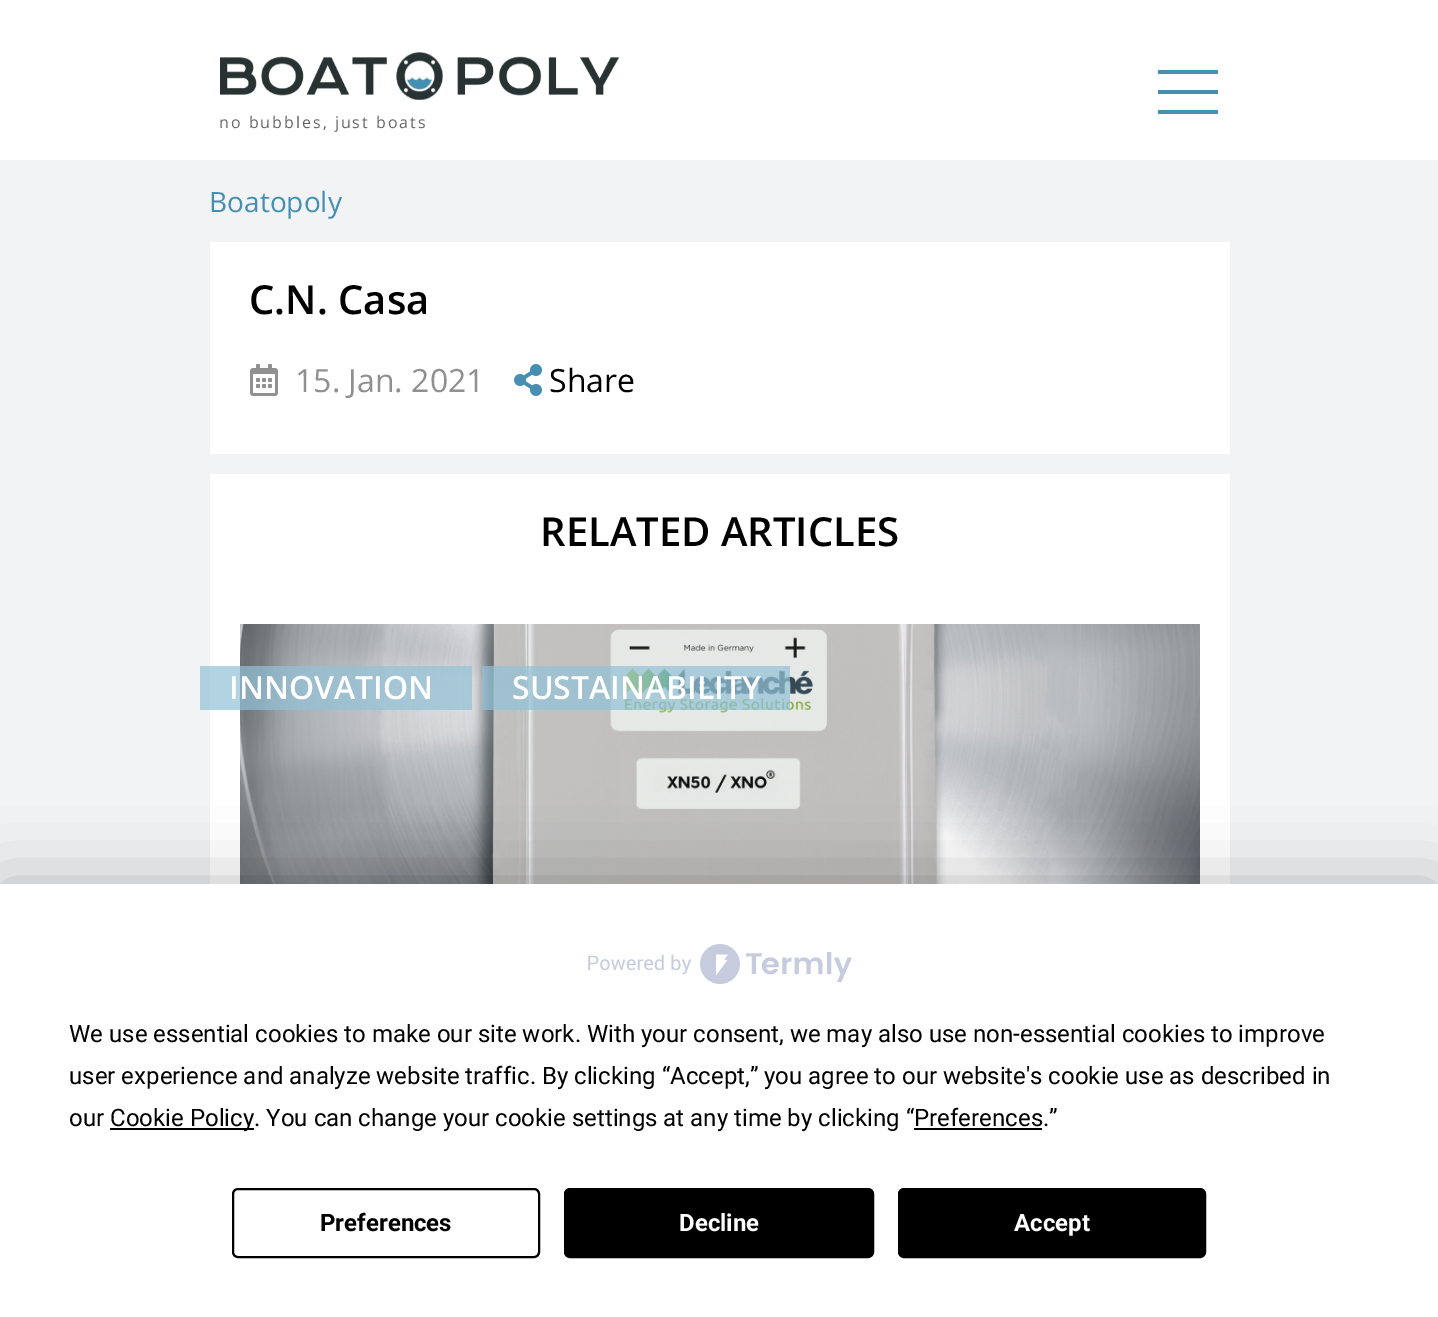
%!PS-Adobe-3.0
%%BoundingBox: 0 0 1438 1317
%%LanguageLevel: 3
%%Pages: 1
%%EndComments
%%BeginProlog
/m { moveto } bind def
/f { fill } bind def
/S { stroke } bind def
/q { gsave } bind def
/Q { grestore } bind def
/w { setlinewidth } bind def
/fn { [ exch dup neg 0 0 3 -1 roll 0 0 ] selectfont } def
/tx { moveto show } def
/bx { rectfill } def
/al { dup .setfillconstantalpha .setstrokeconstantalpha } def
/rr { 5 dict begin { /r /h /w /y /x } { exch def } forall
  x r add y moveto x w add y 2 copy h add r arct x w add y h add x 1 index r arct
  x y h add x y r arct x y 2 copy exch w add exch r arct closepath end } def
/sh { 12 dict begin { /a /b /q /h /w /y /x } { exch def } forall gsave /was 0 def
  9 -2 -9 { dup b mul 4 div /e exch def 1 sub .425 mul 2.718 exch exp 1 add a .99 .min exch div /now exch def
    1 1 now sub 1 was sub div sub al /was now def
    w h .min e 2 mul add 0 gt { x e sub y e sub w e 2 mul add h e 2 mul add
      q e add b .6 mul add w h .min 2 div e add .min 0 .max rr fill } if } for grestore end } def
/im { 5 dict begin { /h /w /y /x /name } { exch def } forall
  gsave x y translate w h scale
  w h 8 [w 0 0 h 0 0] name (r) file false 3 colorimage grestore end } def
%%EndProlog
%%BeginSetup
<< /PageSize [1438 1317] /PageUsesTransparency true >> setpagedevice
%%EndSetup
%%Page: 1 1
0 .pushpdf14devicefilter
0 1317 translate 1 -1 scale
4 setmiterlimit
1 setgray
0 0 1438 1317 bx
0.275 0.561 0.69 setrgbcolor
1158 70 60 4 bx
1158 90 60 4 bx
1158 110 60 4 bx
(image0.raw) 220 52 400 48 im
/OpenSans-Regular 16 fn
0.4 setgray
219 128 m 2 0 (no bubbles, just boats) ashow
0.945 0.953 0.957 setrgbcolor
0 160 1438 724 bx
/OpenSans-Regular 28 fn
0.275 0.561 0.69 setrgbcolor
(Boatopoly) 209 212 tx
1 setgray
210 242 1020 212 bx
/OpenSans-SemiBold 40 fn
0 setgray
(C.N. Casa) 249 314 tx
(image1.raw) 250 364 28 32 im
/OpenSans-Regular 32 fn
0.565 setgray
(15. Jan. 2021) 295 392 tx
(image2.raw) 514 364 28 32 im
0 setgray
(Share) 549 392 tx
1 setgray
210 474 1020 410 bx
/OpenSans-SemiBold 40 fn
0 setgray
(RELATED ARTICLES) 540 546 tx
(image3.raw) 240 624 960 260 im
0.7 al
0.573 0.757 0.839 setrgbcolor
200 666 272 44 bx
/OpenSans-SemiBold 32 fn
1 al
1 setgray
(INNOVATION) 229 699 tx
0.7 al
0.573 0.757 0.839 setrgbcolor
482 666 308 44 bx
1 al
1 setgray
(SUSTAINABILITY) 512 699 tx
0 setgray
0 884 1438 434 0 35 0.25 sh
1 setgray
0 884 1438 433 bx
(image4.raw) 588 944 264 40 im
/Roboto-Regular 24 fn
0 setgray
(We use essential cookies to make our site work. With your consent, we may also use non-essential cookies to improve) 69 1042 tx
(user experience and analyze website traffic. By clicking “Accept,” you agree to our website's cookie use as described in) 69 1084 tx
(our) 69 1126 tx
110 1128 144 2 bx
(Cookie Policy. You can change your cookie settings at any time by clicking “Preferences.”) 110 1126 tx
914 1128 128 2 bx
2 w
233 1189 306 68 5 rr S
/Roboto-Bold 24 fn
(Preferences) 320 1231 tx
565 1189 308 68 5 rr q f Q
S
1 setgray
(Decline) 679 1231 tx
0 setgray
899 1189 306 68 5 rr q f Q
S
1 setgray
(Accept) 1014 1231 tx
.poppdf14devicefilter showpage
%%EOF
